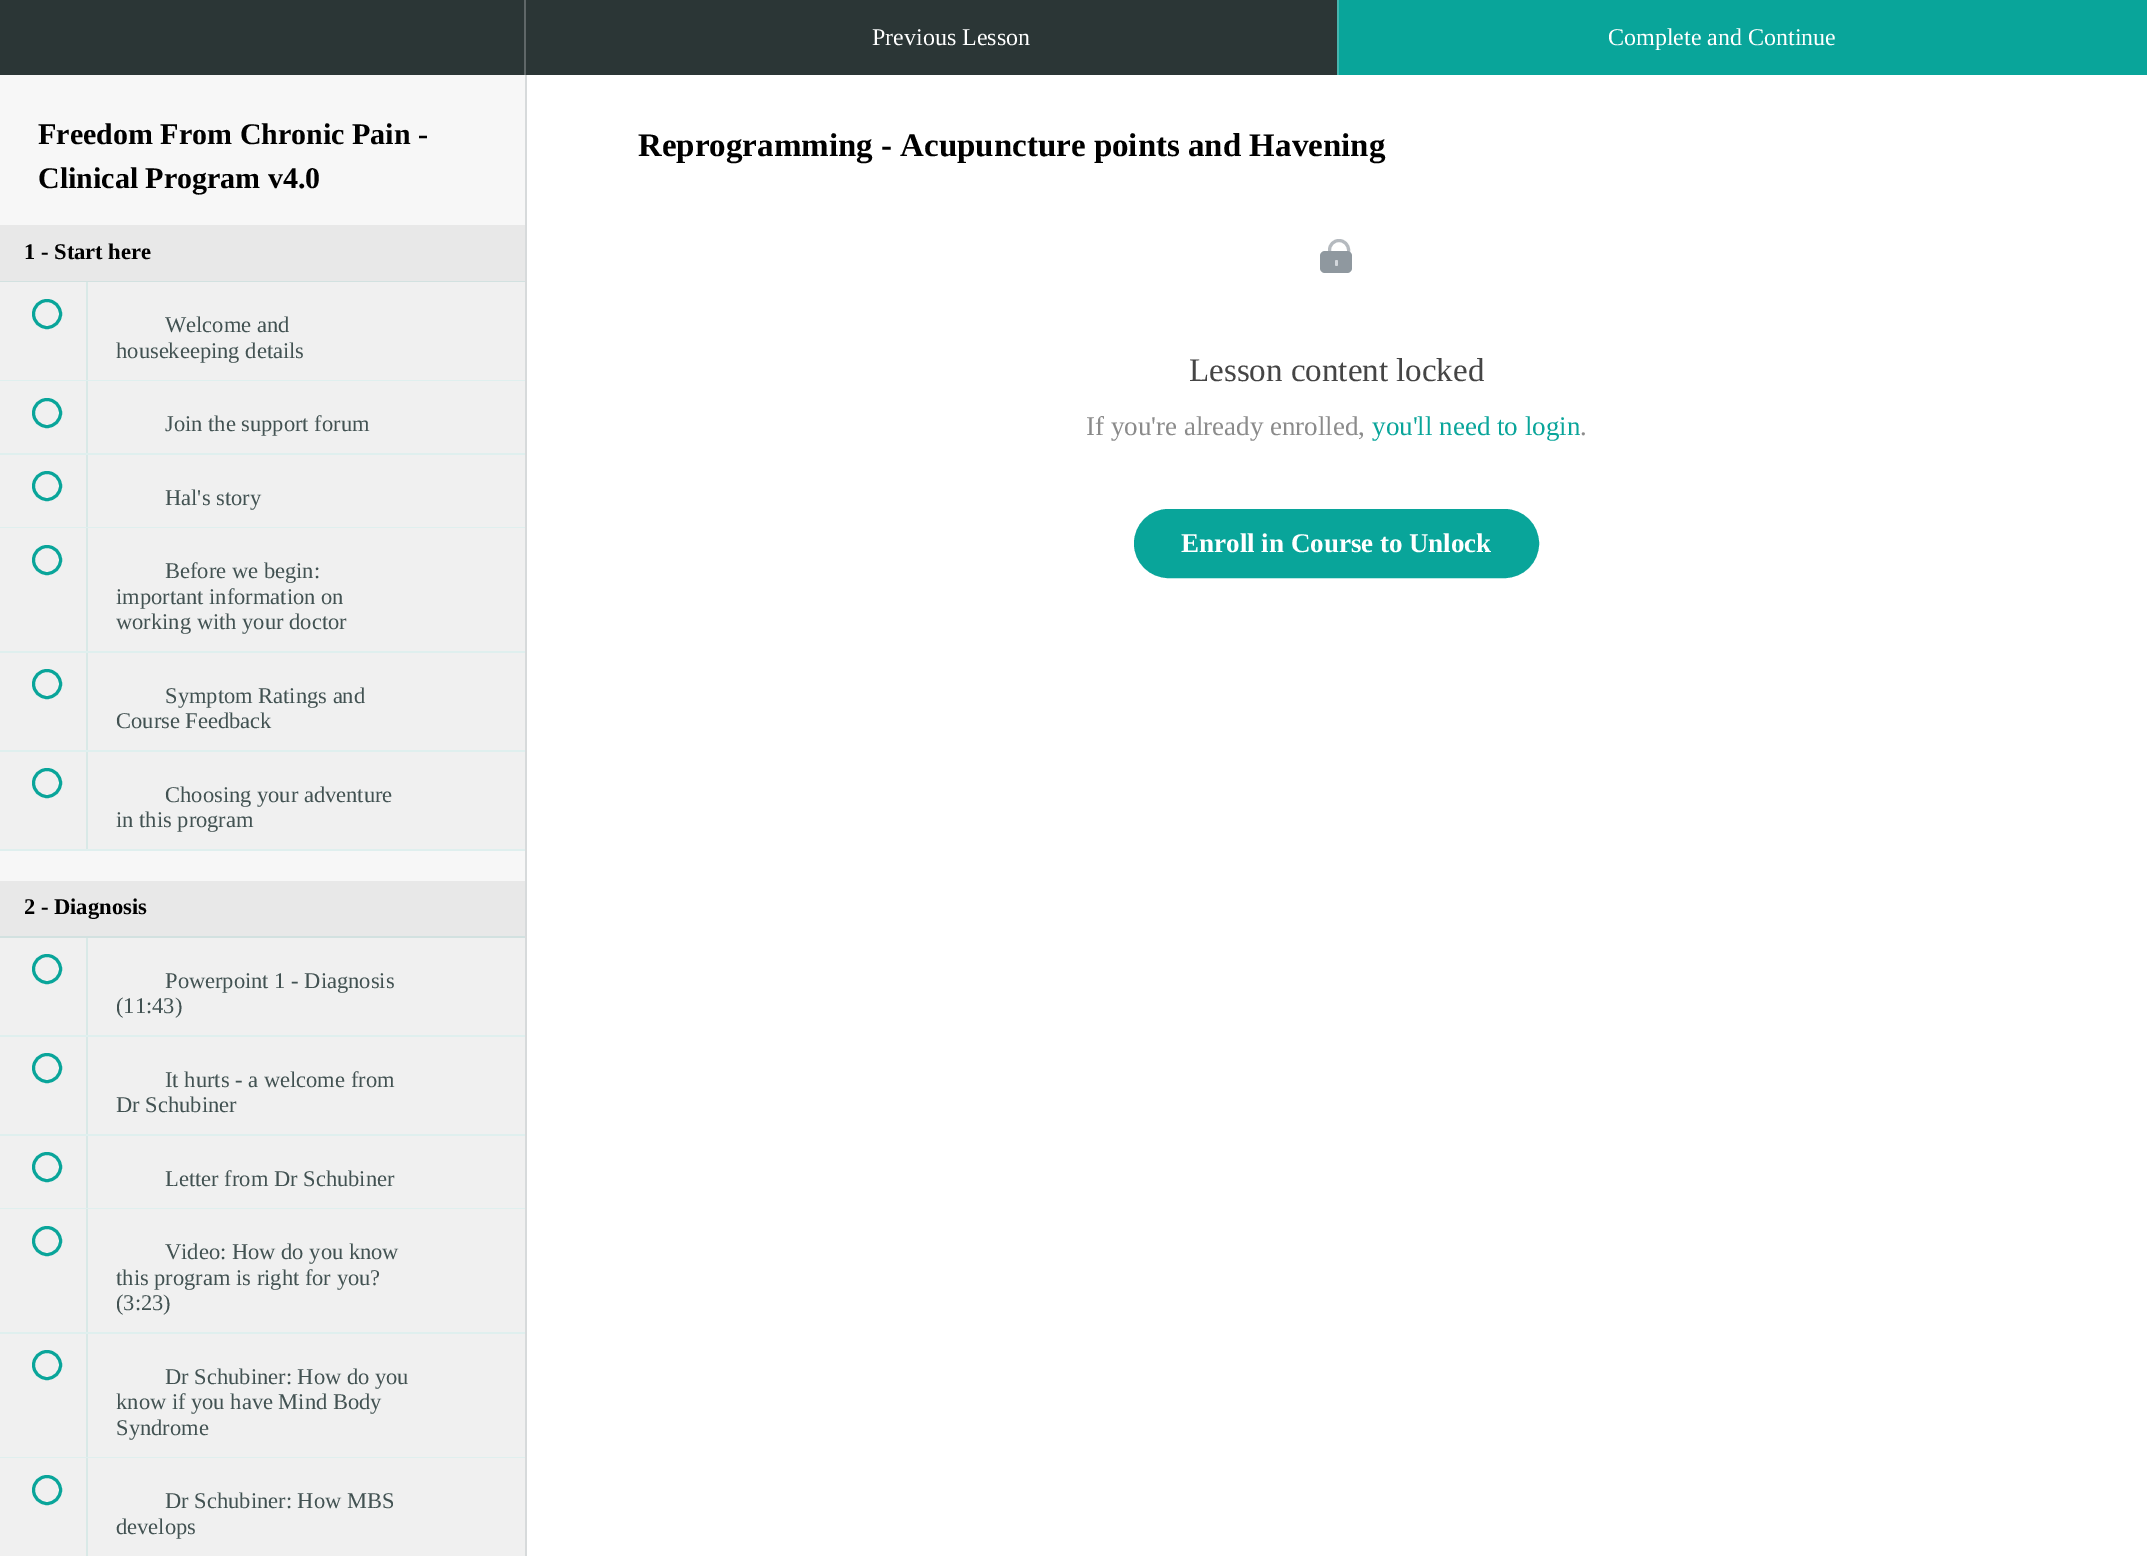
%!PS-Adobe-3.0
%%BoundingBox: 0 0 2147 1556
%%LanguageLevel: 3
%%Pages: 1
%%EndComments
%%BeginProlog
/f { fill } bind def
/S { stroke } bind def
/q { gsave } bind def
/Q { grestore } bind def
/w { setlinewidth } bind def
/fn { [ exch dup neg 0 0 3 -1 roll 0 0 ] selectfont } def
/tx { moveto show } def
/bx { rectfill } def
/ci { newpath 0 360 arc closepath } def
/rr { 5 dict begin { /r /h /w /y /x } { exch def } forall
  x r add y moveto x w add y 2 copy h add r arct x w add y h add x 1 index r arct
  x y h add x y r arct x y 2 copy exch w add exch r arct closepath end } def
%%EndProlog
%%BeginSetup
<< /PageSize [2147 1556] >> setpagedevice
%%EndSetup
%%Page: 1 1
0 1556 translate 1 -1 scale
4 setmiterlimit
1 setgray
0 0 2147 1556 bx
0.169 0.212 0.212 setrgbcolor
0 0 1337 75 bx
0.373 0.404 0.408 setrgbcolor
524 0 2 75 bx
/LiberationSerif-Regular 24 fn
1 setgray
(Previous Lesson) 872 45 tx
0.035 0.647 0.604 setrgbcolor
1339 0 808 75 bx
0.278 0.71 0.682 setrgbcolor
1337 0 2 75 bx
1 setgray
(Complete and Continue) 1608 45 tx
0.969 setgray
0 75 525 806 bx
0.843 0.855 0.859 setrgbcolor
525 75 2 1481 bx
/LiberationSerif-Bold 30 fn
0 setgray
(Freedom From Chronic Pain -) 38 144 tx
(Clinical Program v4.0) 38 188 tx
0.91 setgray
0 225 525 56 bx
0.824 0.882 0.878 setrgbcolor
0 281 525 1 bx
/LiberationSerif-Bold 22.5 fn
0 setgray
(1 - Start here) 24 259 tx
0.875 0.937 0.933 setrgbcolor
0 380 525 1 bx
0.941 setgray
0 282 525 98 bx
0.035 0.647 0.604 setrgbcolor
3 w
47 314 13.5 ci S
0.851 0.914 0.906 setrgbcolor
86 282 2 98 bx
/LiberationSerif-Regular 22.5 fn
0.259 0.322 0.322 setrgbcolor
(Welcome and) 165 332 tx
(housekeeping details) 116 358 tx
0.875 0.937 0.933 setrgbcolor
0 453 525 2 bx
0.941 setgray
0 381 525 72 bx
0.035 0.647 0.604 setrgbcolor
47 413 13.5 ci S
0.851 0.914 0.906 setrgbcolor
86 381 2 72 bx
0.259 0.322 0.322 setrgbcolor
(Join the support forum) 165 431 tx
0.875 0.937 0.933 setrgbcolor
0 527 525 1 bx
0.941 setgray
0 455 525 72 bx
0.035 0.647 0.604 setrgbcolor
47 486 13.5 ci S
0.851 0.914 0.906 setrgbcolor
86 455 2 72 bx
0.259 0.322 0.322 setrgbcolor
(Hal's story) 165 505 tx
0.875 0.937 0.933 setrgbcolor
0 651 525 2 bx
0.941 setgray
0 528 525 123 bx
0.035 0.647 0.604 setrgbcolor
47 560 13.5 ci S
0.851 0.914 0.906 setrgbcolor
86 528 2 123 bx
0.259 0.322 0.322 setrgbcolor
(Before we begin:) 165 578 tx
(important information on) 116 604 tx
(working with your doctor) 116 629 tx
0.875 0.937 0.933 setrgbcolor
0 750 525 2 bx
0.941 setgray
0 653 525 97 bx
0.035 0.647 0.604 setrgbcolor
47 684 13.5 ci S
0.851 0.914 0.906 setrgbcolor
86 653 2 97 bx
0.259 0.322 0.322 setrgbcolor
(Symptom Ratings and) 165 703 tx
(Course Feedback) 116 728 tx
0.875 0.937 0.933 setrgbcolor
0 849 525 2 bx
0.941 setgray
0 752 525 97 bx
0.035 0.647 0.604 setrgbcolor
47 783 13.5 ci S
0.851 0.914 0.906 setrgbcolor
86 752 2 97 bx
0.259 0.322 0.322 setrgbcolor
(Choosing your adventure) 165 802 tx
(in this program) 116 827 tx
0.91 setgray
0 881 525 55 bx
0.824 0.882 0.878 setrgbcolor
0 936 525 2 bx
/LiberationSerif-Bold 22.5 fn
0 setgray
(2 - Diagnosis) 24 914 tx
0.875 0.937 0.933 setrgbcolor
0 1035 525 2 bx
0.941 setgray
0 938 525 97 bx
0.035 0.647 0.604 setrgbcolor
47 969 13.5 ci S
0.851 0.914 0.906 setrgbcolor
86 938 2 97 bx
/LiberationSerif-Regular 22.5 fn
0.259 0.322 0.322 setrgbcolor
(Powerpoint 1 - Diagnosis) 165 988 tx
(\(11:43\)) 116 1013 tx
0.875 0.937 0.933 setrgbcolor
0 1134 525 2 bx
0.941 setgray
0 1037 525 97 bx
0.035 0.647 0.604 setrgbcolor
47 1068 13.5 ci S
0.851 0.914 0.906 setrgbcolor
86 1037 2 97 bx
0.259 0.322 0.322 setrgbcolor
(It hurts - a welcome from) 165 1087 tx
(Dr Schubiner) 116 1112 tx
0.875 0.937 0.933 setrgbcolor
0 1208 525 1 bx
0.941 setgray
0 1136 525 72 bx
0.035 0.647 0.604 setrgbcolor
47 1167 13.5 ci S
0.851 0.914 0.906 setrgbcolor
86 1136 2 72 bx
0.259 0.322 0.322 setrgbcolor
(Letter from Dr Schubiner) 165 1186 tx
0.875 0.937 0.933 setrgbcolor
0 1332 525 2 bx
0.941 setgray
0 1209 525 123 bx
0.035 0.647 0.604 setrgbcolor
47 1241 13.5 ci S
0.851 0.914 0.906 setrgbcolor
86 1209 2 123 bx
0.259 0.322 0.322 setrgbcolor
(Video: How do you know) 165 1259 tx
(this program is right for you?) 116 1285 tx
(\(3:23\)) 116 1310 tx
0.875 0.937 0.933 setrgbcolor
0 1457 525 1 bx
0.941 setgray
0 1334 525 123 bx
0.035 0.647 0.604 setrgbcolor
47 1365 13.5 ci S
0.851 0.914 0.906 setrgbcolor
86 1334 2 123 bx
0.259 0.322 0.322 setrgbcolor
(Dr Schubiner: How do you) 165 1384 tx
(know if you have Mind Body) 116 1409 tx
(Syndrome) 116 1435 tx
0.941 setgray
0 1458 525 98 bx
0.035 0.647 0.604 setrgbcolor
47 1490 13.5 ci S
0.851 0.914 0.906 setrgbcolor
86 1458 2 98 bx
0.259 0.322 0.322 setrgbcolor
(Dr Schubiner: How MBS) 165 1508 tx
(develops) 116 1534 tx
/LiberationSerif-Bold 33 fn
0 setgray
(Reprogramming - Acupuncture points and Havening) 638 156 tx
0.71 0.729 0.749 setrgbcolor
1329.5 240.5 19 30 9.5 rr S
0.561 0.596 0.624 setrgbcolor
1320 251 32 22 5 rr f
0.827 0.843 0.863 setrgbcolor
1335 260 3 6 1.5 rr f
/LiberationSerif-Regular 33 fn
0.271 setgray
(Lesson content locked) 1189 381 tx
/LiberationSerif-Regular 27 fn
0.545 setgray
(If you're already enrolled,) 1086 435 tx
0.035 0.647 0.604 setrgbcolor
(you'll need to login) 1372 435 tx
0.545 setgray
(.) 1580 435 tx
0.035 0.647 0.604 setrgbcolor
1135 510 403 67 33.5 rr q f Q
2 w
S
/LiberationSerif-Bold 27 fn
1 setgray
(Enroll in Course to Unlock) 1181 552 tx
showpage
%%EOF
